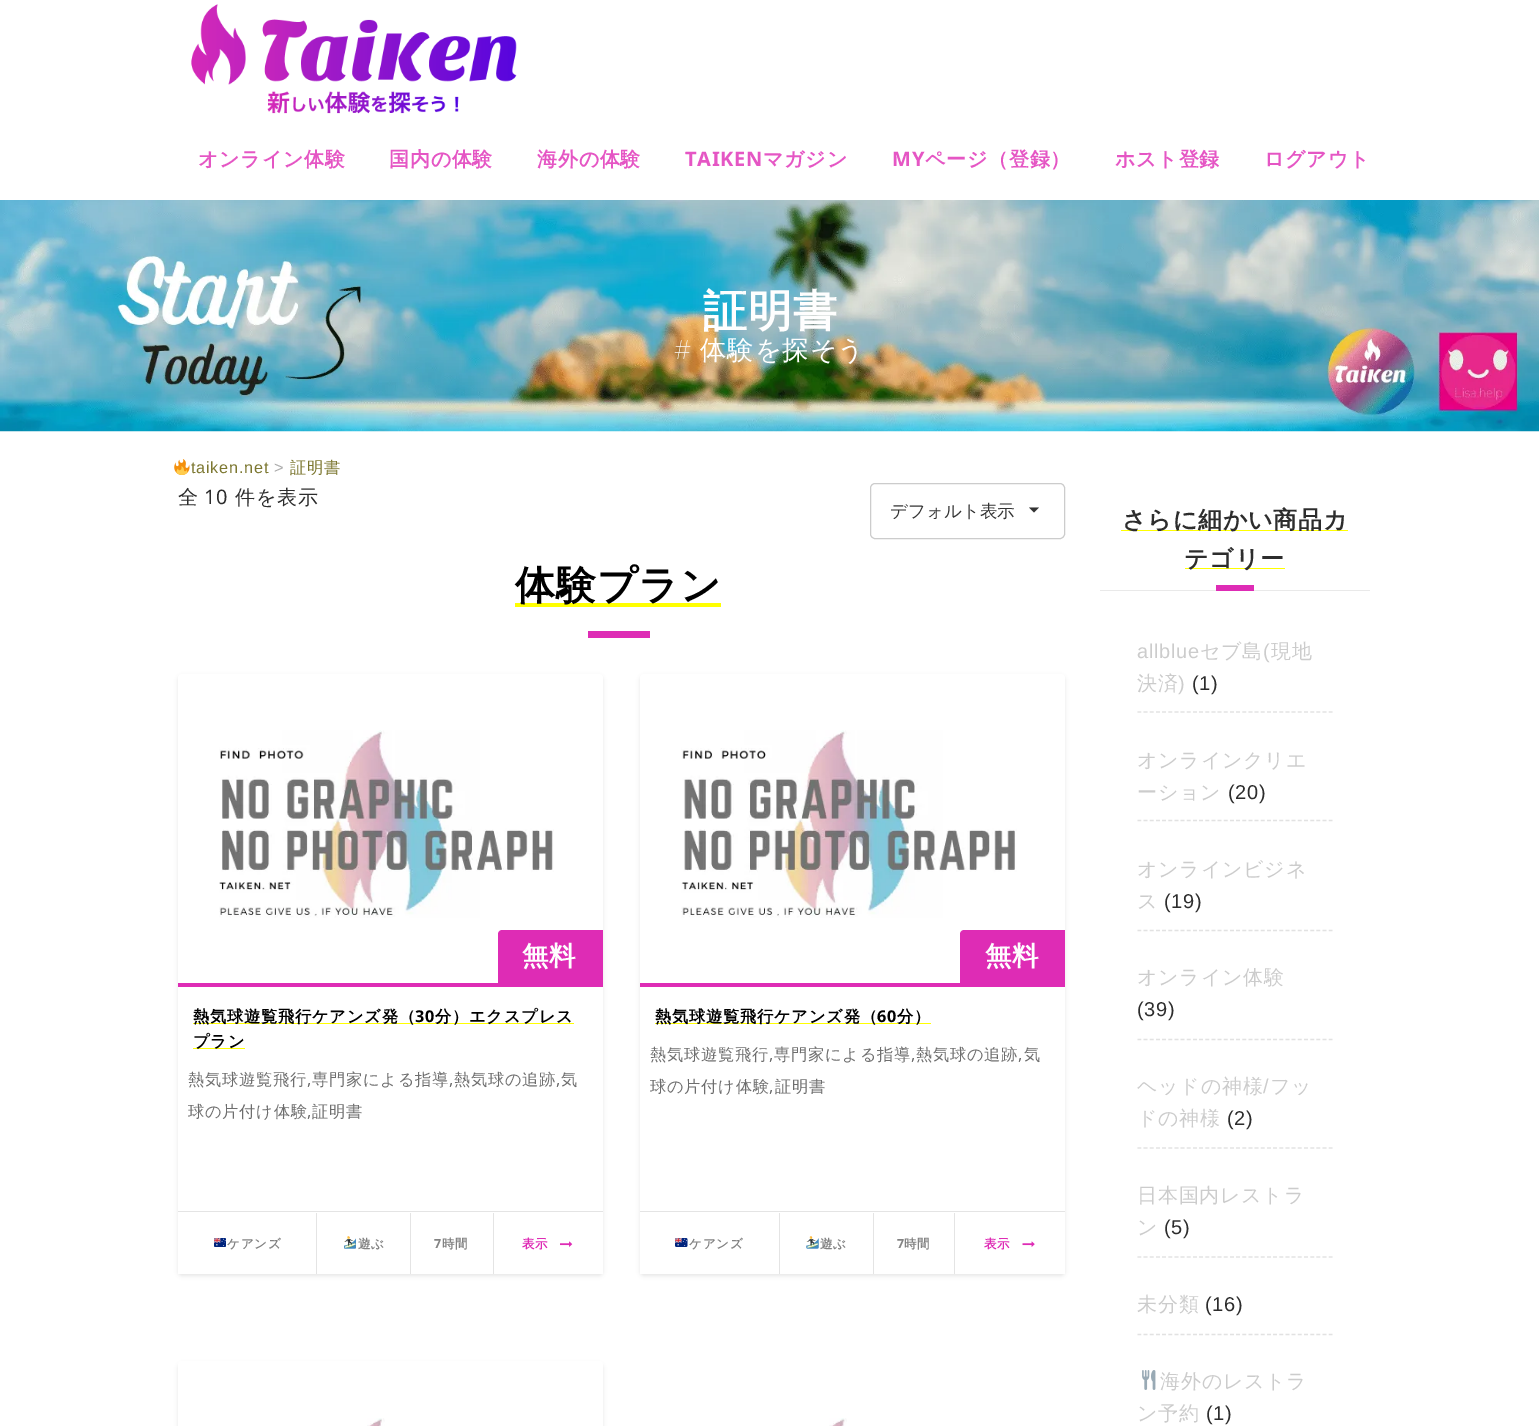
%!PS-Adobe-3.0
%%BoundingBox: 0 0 1539 1426
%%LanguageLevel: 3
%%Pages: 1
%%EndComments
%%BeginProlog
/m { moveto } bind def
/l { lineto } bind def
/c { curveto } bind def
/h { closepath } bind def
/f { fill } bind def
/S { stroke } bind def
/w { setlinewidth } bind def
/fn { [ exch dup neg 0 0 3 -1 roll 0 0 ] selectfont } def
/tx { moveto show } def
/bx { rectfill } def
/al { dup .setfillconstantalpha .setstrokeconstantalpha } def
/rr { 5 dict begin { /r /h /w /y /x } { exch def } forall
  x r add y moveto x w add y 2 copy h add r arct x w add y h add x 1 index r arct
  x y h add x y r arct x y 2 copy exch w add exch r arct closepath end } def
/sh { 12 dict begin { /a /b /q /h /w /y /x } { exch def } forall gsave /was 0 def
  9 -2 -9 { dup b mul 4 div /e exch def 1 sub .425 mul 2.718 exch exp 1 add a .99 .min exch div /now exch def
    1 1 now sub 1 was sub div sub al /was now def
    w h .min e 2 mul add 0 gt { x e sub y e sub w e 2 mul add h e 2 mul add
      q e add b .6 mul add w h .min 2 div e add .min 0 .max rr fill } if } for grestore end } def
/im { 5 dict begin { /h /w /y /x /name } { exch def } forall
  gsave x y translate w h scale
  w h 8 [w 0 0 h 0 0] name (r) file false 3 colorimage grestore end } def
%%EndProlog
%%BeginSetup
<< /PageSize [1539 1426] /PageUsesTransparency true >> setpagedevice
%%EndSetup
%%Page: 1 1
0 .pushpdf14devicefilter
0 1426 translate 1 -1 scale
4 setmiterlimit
1 setgray
0 0 1539 1426 bx
(image0.raw) 191 4 326 110 im
/WenQuanYiZenHei-Bold 20 fn
0.898 0.337 0.769 setrgbcolor
198 166 m 0.75 0 (オンライン体験) ashow
389 166 m 0.75 0 (国内の体験) ashow
537 166 m 0.75 0 (海外の体験) ashow
/NotoSans-Bold 20 fn
685 166 m 0.75 0 (TAIKEN) ashow
/WenQuanYiZenHei-Bold 20 fn
763 166 m 0.75 0 (マガジン) ashow
/NotoSans-Bold 20 fn
892 166 m 0.75 0 (MY) ashow
/WenQuanYiZenHei-Bold 20 fn
925 166 m 0.75 0 (ページ（登録）) ashow
1115 166 m 0.75 0 (ホスト登録) ashow
1264 166 m 0.75 0 (ログアウト) ashow
(image1.raw) 0 200 1539 232 im
/WenQuanYiZenHei-Bold 44 fn
0.996 setgray
703 326 m 0.75 0 (証明書) ashow
/NotoSans-Thin 26.5 fn
674 359 m 0.75 0 (#) ashow
/WenQuanYiZenHei-Medium 26.5 fn
700 359 m 0.75 0 (体験を探そう) ashow
(image2.raw) 174 459 16 16 im
/LiberationSans-Regular 16.25 fn
0.486 0.467 0.188 setrgbcolor
191 473 m 0.75 0 (taiken.net) ashow
0.671 setgray
274 473 m 0.75 0 (>) ashow
/WenQuanYiZenHei-Medium 16.25 fn
0.486 0.467 0.188 setrgbcolor
290 473 m 0.75 0 (証明書) ashow
/WenQuanYiZenHei-Medium 20 fn
0.176 setgray
178 504 m 0.75 0 (全) ashow
/NotoSans-Regular 20 fn
204 504 m 0.75 0 (10) ashow
/WenQuanYiZenHei-Medium 20 fn
235 504 m 0.75 0 (件を表示) ashow
0.8 setgray
870.5 483.5 194 55 4.5 rr S
/WenQuanYiZenHei-Medium 17.5 fn
0.2 setgray
(デフォルト表示) 890 517 tx
1029 507.5 m 1039 507.5 l 1034 512.5 l h f
1 1 0 setrgbcolor
515 603 206 4 bx
/WenQuanYiZenHei-Bold 40 fn
0 setgray
515 599 m 0.75 0 (体験プラン) ashow
0.871 0.173 0.71 setrgbcolor
588 631 62 7 bx
0 setgray
178 676 425 600 4 2 0.09 sh
1 setgray
178 674 425 600 4 rr f
(image3.raw) 219 730 335 188 im
0.871 0.173 0.71 setrgbcolor
502 930 m 603 930 l 603 986 l 498 986 l 498 934 l 498 932 500 930 502 930 c h f
/WenQuanYiZenHei-Bold 26.5 fn
0.996 setgray
522 965 m 0.75 0 (無料) ashow
0.871 0.173 0.71 setrgbcolor
178 983 425 4 bx
1 1 0 setrgbcolor
193 1023 381 1 bx
/WenQuanYiZenHei-Bold 16.25 fn
0 setgray
193 1022 m 0.75 0 (熱気球遊覧飛行ケアンズ発（) ashow
/NotoSans-Bold 16.25 fn
415 1022 m 0.75 0 (30) ashow
/WenQuanYiZenHei-Bold 16.25 fn
435 1022 m 0.75 0 (分）エクスプレス) ashow
1 1 0 setrgbcolor
193 1048 52 1 bx
0 setgray
193 1047 m 0.75 0 (プラン) ashow
/WenQuanYiZenHei-Medium 16.25 fn
0.431 setgray
188 1085 m 0.75 0 (熱気球遊覧飛行) ashow
/NotoSans-Regular 16.25 fn
307 1085 m 0.75 0 (,) ashow
/WenQuanYiZenHei-Medium 16.25 fn
312 1085 m 0.75 0 (専門家による指導) ashow
/NotoSans-Regular 16.25 fn
449 1085 m 0.75 0 (,) ashow
/WenQuanYiZenHei-Medium 16.25 fn
454 1085 m 0.75 0 (熱気球の追跡) ashow
/NotoSans-Regular 16.25 fn
556 1085 m 0.75 0 (,) ashow
/WenQuanYiZenHei-Medium 16.25 fn
561 1085 m 0.75 0 (気) ashow
188 1117 m 0.75 0 (球の片付け体験) ashow
/NotoSans-Regular 16.25 fn
307 1117 m 0.75 0 (,) ashow
/WenQuanYiZenHei-Medium 16.25 fn
312 1117 m 0.75 0 (証明書) ashow
1 setgray
178 1271 425 3 bx
0.894 setgray
178 1211 425 1 bx
316 1213 1 61 bx
(image4.raw) 214 1238 12 9 im
/WenQuanYiZenHei-Bold 12.5 fn
0.51 setgray
227 1248 m 0.75 0 (ケアンズ) ashow
0.894 setgray
410 1213 1 61 bx
(image5.raw) 344 1236 12 13 im
0.51 setgray
358 1248 m 0.75 0 (遊ぶ) ashow
0.894 setgray
493 1213 1 61 bx
/NotoSans-Bold 12.5 fn
0.51 setgray
434 1248 m 0.75 0 (7) ashow
/WenQuanYiZenHei-Bold 12.5 fn
442 1248 m 0.75 0 (時間) ashow
0.871 0.173 0.71 setrgbcolor
522 1248 m 0.75 0 (表示) ashow
(image6.raw) 560 1241 13 6 im
0 setgray
640 676 425 600 4 2 0.09 sh
1 setgray
640 674 425 600 4 rr f
(image7.raw) 681 730 336 188 im
0.871 0.173 0.71 setrgbcolor
964 930 m 1065 930 l 1065 986 l 960 986 l 960 934 l 960 932 962 930 964 930 c h f
/WenQuanYiZenHei-Bold 26.5 fn
0.996 setgray
985 965 m 0.75 0 (無料) ashow
0.871 0.173 0.71 setrgbcolor
640 983 425 4 bx
1 1 0 setrgbcolor
655 1023 276 1 bx
/WenQuanYiZenHei-Bold 16.25 fn
0 setgray
655 1022 m 0.75 0 (熱気球遊覧飛行ケアンズ発（) ashow
/NotoSans-Bold 16.25 fn
877 1022 m 0.75 0 (60) ashow
/WenQuanYiZenHei-Bold 16.25 fn
897 1022 m 0.75 0 (分）) ashow
/WenQuanYiZenHei-Medium 16.25 fn
0.431 setgray
650 1060 m 0.75 0 (熱気球遊覧飛行) ashow
/NotoSans-Regular 16.25 fn
769 1060 m 0.75 0 (,) ashow
/WenQuanYiZenHei-Medium 16.25 fn
774 1060 m 0.75 0 (専門家による指導) ashow
/NotoSans-Regular 16.25 fn
911 1060 m 0.75 0 (,) ashow
/WenQuanYiZenHei-Medium 16.25 fn
916 1060 m 0.75 0 (熱気球の追跡) ashow
/NotoSans-Regular 16.25 fn
1018 1060 m 0.75 0 (,) ashow
/WenQuanYiZenHei-Medium 16.25 fn
1024 1060 m 0.75 0 (気) ashow
650 1092 m 0.75 0 (球の片付け体験) ashow
/NotoSans-Regular 16.25 fn
769 1092 m 0.75 0 (,) ashow
/WenQuanYiZenHei-Medium 16.25 fn
775 1092 m 0.75 0 (証明書) ashow
1 setgray
640 1271 425 3 bx
0.894 setgray
640 1211 425 1 bx
779 1213 1 61 bx
(image8.raw) 675 1238 13 9 im
/WenQuanYiZenHei-Bold 12.5 fn
0.51 setgray
689 1248 m 0.75 0 (ケアンズ) ashow
0.894 setgray
873 1213 1 61 bx
(image9.raw) 806 1236 13 13 im
0.51 setgray
820 1248 m 0.75 0 (遊ぶ) ashow
0.894 setgray
954 1213 1 61 bx
/NotoSans-Bold 12.5 fn
0.51 setgray
897 1248 m 0.75 0 (7) ashow
/WenQuanYiZenHei-Bold 12.5 fn
904 1248 m 0.75 0 (時間) ashow
0.871 0.173 0.71 setrgbcolor
984 1248 m 0.75 0 (表示) ashow
(image10.raw) 1022 1241 13 6 im
0 setgray
178 1364 425 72 4 2 0.09 sh
1 setgray
178 1361 425 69 4 rr f
(image11.raw) 367 1418 18 8 im
(image12.raw) 829 1418 18 8 im
0.914 setgray
1100 590 270 1 bx
1 1 0 setrgbcolor
1121 530 227 1 bx
/WenQuanYiZenHei-Bold 24 fn
0.176 setgray
1122 528 m 0.75 0 (さらに細かい商品カ) ashow
1 1 0 setrgbcolor
1185 568 100 1 bx
0.176 setgray
1184 567 m 0.75 0 (テゴリー) ashow
0.871 0.173 0.71 setrgbcolor
1216 585 38 6 bx
0.886 setgray
1.2 w
[3.75 2.42] 0 setdash
1137.5 712 m 1332.5 712 l S
/LiberationSans-Regular 20 fn
0.8 setgray
1137 658 m 0.75 0 (allblue) ashow
/WenQuanYiZenHei-Medium 20 fn
1200 658 m 0.75 0 (セブ島) ashow
/LiberationSans-Regular 20 fn
1263 658 m 0.75 0 (\() ashow
/WenQuanYiZenHei-Medium 20 fn
1271 658 m 0.75 0 (現地) ashow
1137 690 m 0.75 0 (決済) ashow
/LiberationSans-Regular 20 fn
1178 690 m 0.75 0 (\)) ashow
0.176 setgray
1192 690 m 0.75 0 (\(1\)) ashow
0.886 setgray
1137.5 820.5 m 1332.5 820.5 l S
/WenQuanYiZenHei-Medium 20 fn
0.8 setgray
1137 767 m 0.75 0 (オンラインクリエ) ashow
1137 799 m 0.75 0 (ーション) ashow
/LiberationSans-Regular 20 fn
0.176 setgray
1228 799 m 0.75 0 (\(20\)) ashow
0.886 setgray
1137.5 930.5 m 1332.5 930.5 l S
/WenQuanYiZenHei-Medium 20 fn
0.8 setgray
1137 876 m 0.75 0 (オンラインビジネ) ashow
1137 908 m 0.75 0 (ス) ashow
/LiberationSans-Regular 20 fn
0.176 setgray
1164 908 m 0.75 0 (\(19\)) ashow
0.886 setgray
1137.5 1039.5 m 1332.5 1039.5 l S
/WenQuanYiZenHei-Medium 20 fn
0.8 setgray
1137 984 m 0.75 0 (オンライン体験) ashow
/LiberationSans-Regular 20 fn
0.176 setgray
1137 1016 m 0.75 0 (\(39\)) ashow
0.886 setgray
1137.5 1148 m 1332.5 1148 l S
/WenQuanYiZenHei-Medium 20 fn
0.8 setgray
1137 1093 m 0.75 0 (ヘッドの神様) ashow
/LiberationSans-Regular 20 fn
1263 1093 m 0.75 0 (/) ashow
/WenQuanYiZenHei-Medium 20 fn
1270 1093 m 0.75 0 (フッ) ashow
1137 1125 m 0.75 0 (ドの神様) ashow
/LiberationSans-Regular 20 fn
0.176 setgray
1227 1125 m 0.75 0 (\(2\)) ashow
0.886 setgray
1137.5 1257 m 1332.5 1257 l S
/WenQuanYiZenHei-Medium 20 fn
0.8 setgray
1137 1202 m 0.75 0 (日本国内レストラ) ashow
1137 1234 m 0.75 0 (ン) ashow
/LiberationSans-Regular 20 fn
0.176 setgray
1164 1234 m 0.75 0 (\(5\)) ashow
0.886 setgray
1137.5 1334.5 m 1332.5 1334.5 l S
/WenQuanYiZenHei-Medium 20 fn
0.8 setgray
1137 1311 m 0.75 0 (未分類) ashow
/LiberationSans-Regular 20 fn
0.176 setgray
1205 1311 m 0.75 0 (\(16\)) ashow
(image13.raw) 1142 1370 14 20 im
/WenQuanYiZenHei-Medium 20 fn
0.8 setgray
1160 1388 m 0.75 0 (海外のレストラ) ashow
1137 1420 m 0.75 0 (ン予約) ashow
/LiberationSans-Regular 20 fn
0.176 setgray
1206 1420 m 0.75 0 (\(1\)) ashow
.poppdf14devicefilter showpage
%%EOF
